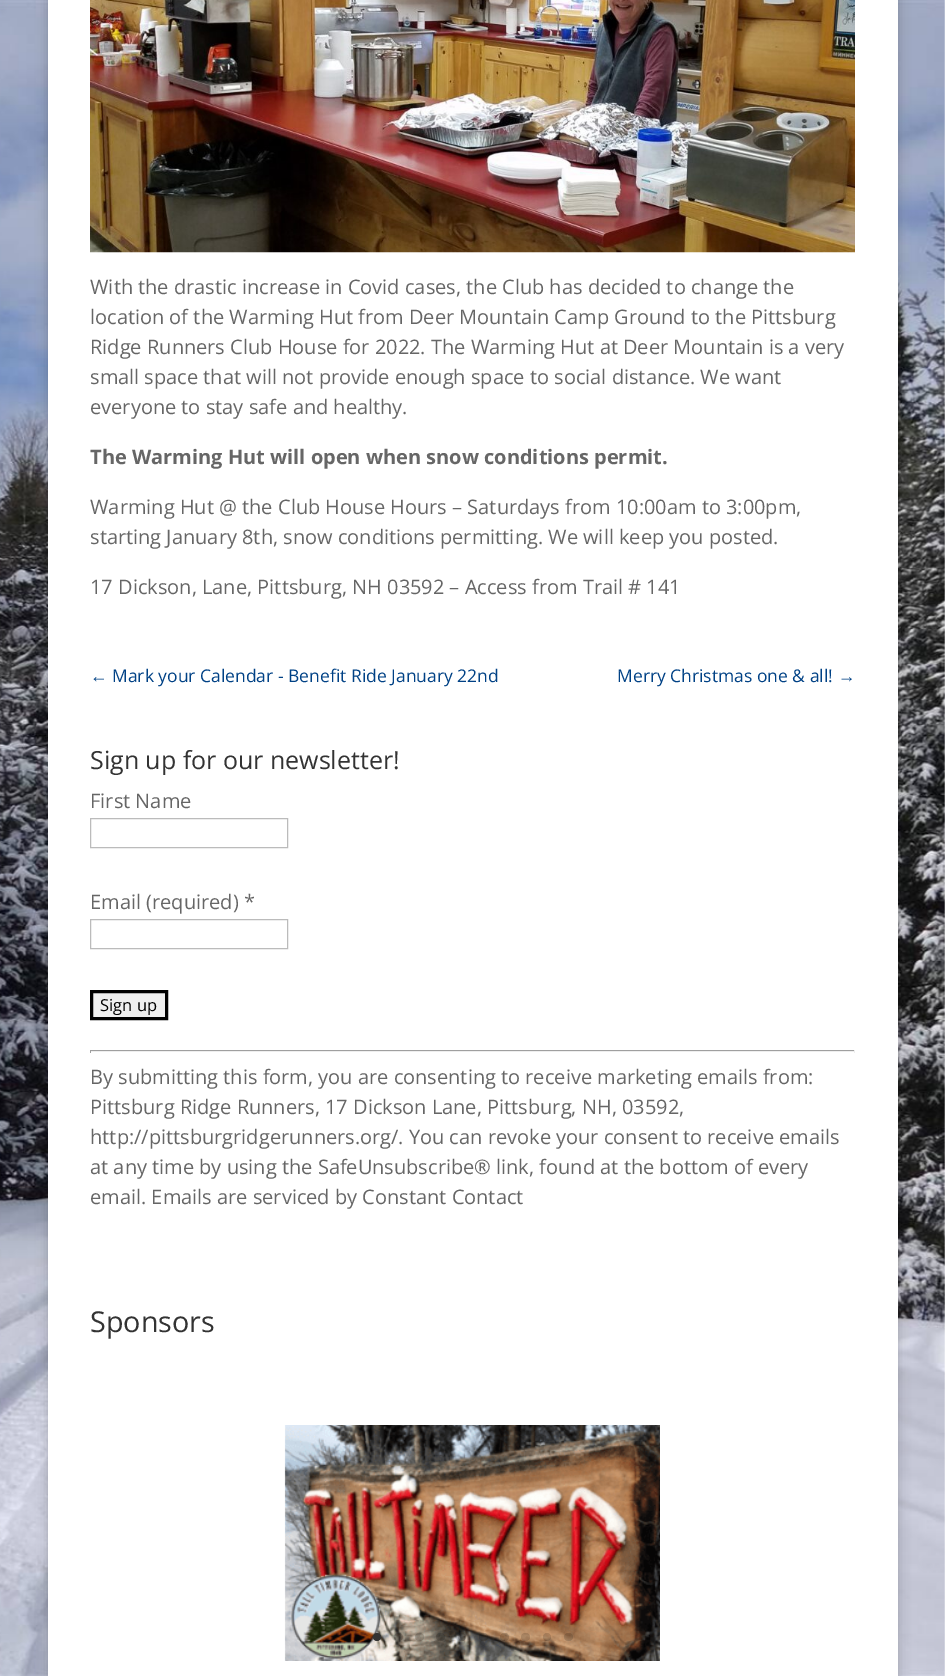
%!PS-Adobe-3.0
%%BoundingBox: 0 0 945 1676
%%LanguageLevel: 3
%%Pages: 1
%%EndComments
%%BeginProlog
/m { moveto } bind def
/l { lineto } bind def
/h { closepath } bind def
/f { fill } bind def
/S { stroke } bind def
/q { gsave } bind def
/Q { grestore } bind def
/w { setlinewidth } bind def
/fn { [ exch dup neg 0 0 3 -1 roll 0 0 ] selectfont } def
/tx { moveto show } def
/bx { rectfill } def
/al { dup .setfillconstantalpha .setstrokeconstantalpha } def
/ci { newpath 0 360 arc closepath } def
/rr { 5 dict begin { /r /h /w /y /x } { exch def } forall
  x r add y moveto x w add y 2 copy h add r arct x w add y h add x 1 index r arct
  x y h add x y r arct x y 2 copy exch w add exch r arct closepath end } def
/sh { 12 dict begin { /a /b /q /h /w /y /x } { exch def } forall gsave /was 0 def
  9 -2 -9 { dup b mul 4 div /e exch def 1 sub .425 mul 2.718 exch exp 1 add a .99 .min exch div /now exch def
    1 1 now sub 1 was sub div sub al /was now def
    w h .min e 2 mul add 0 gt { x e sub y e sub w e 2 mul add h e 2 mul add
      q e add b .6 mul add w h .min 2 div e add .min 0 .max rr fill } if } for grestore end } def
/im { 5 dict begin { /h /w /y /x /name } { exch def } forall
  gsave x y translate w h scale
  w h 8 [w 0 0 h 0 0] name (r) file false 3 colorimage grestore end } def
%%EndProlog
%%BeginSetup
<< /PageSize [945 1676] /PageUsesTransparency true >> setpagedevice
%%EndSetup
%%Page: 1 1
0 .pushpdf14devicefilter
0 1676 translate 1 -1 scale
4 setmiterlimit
1 setgray
0 0 945 1676 bx
(image0.raw) 0 0 945 1676 im
0 setgray
48 -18 850 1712 0 6 0.2 sh
1 setgray
48 0 850 1676 bx
(image1.raw) 90 0 765 253 im
/OpenSans-Regular 20 fn
0.4 setgray
(With the drastic increase in Covid cases, the Club has decided to change the) 90 294 tx
(location of the Warming Hut from Deer Mountain Camp Ground to the Pittsburg) 90 324 tx
(Ridge Runners Club House for 2022. The Warming Hut at Deer Mountain is a very) 90 354 tx
(small space that will not provide enough space to social distance. We want) 90 384 tx
(everyone to stay safe and healthy.) 90 414 tx
/OpenSans-Bold 20 fn
(The Warming Hut will open when snow conditions permit.) 90 464 tx
/OpenSans-Regular 20 fn
(Warming Hut @ the Club House Hours – Saturdays from 10:00am to 3:00pm,) 90 514 tx
(starting January 8th, snow conditions permitting. We will keep you posted.) 90 544 tx
(17 Dickson, Lane, Pittsburg, NH 03592 – Access from Trail # 141) 90 594 tx
/LiberationSans-Regular 17.5 fn
0 0.255 0.522 setrgbcolor
(←) 90 682 tx
/OpenSans-Regular 17.5 fn
(Mark your Calendar - Benefit Ride January 22nd) 112 682 tx
(Merry Christmas one & all!) 617 682 tx
/LiberationSans-Regular 17.5 fn
(→) 838 682 tx
/OpenSans-Regular 25 fn
0.2 setgray
(Sign up for our newsletter!) 90 769 tx
/OpenSans-Regular 20 fn
0.4 setgray
(First Name) 90 808 tx
0.733 setgray
90.5 818.5 197 29 rectstroke
0.4 setgray
(Email \(required\) *) 90 909 tx
0.733 setgray
90.5 919.5 197 29 rectstroke
0.937 setgray
91.5 991.5 m 166.5 991.5 l 166.5 1018.5 l 91.5 1018.5 l h q f Q
0 setgray
3 w
S
/OpenSans-Regular 16.5 fn
(Sign up) 100 1011 tx
0.624 setgray
90 1050 765 1 bx
0.933 setgray
854 1050 1 3 bx
90 1051 765 1 bx
0.624 setgray
90 1050 1 3 bx
/OpenSans-Regular 20 fn
0.4 setgray
(By submitting this form, you are consenting to receive marketing emails from:) 90 1084 tx
(Pittsburg Ridge Runners, 17 Dickson Lane, Pittsburg, NH, 03592,) 90 1114 tx
(http://pittsburgridgerunners.org/. You can revoke your consent to receive emails) 90 1144 tx
(at any time by using the SafeUnsubscribe® link, found at the bottom of every) 90 1174 tx
(email. Emails are serviced by Constant Contact) 90 1204 tx
/OpenSans-Regular 28.75 fn
0.2 setgray
(Sponsors) 90 1332 tx
(image2.raw) 284 1425 376 236 im
377 1637 4 ci f
0.15 al
0 setgray
394 1633 9 8 4 rr f
415 1633 9 8 4 rr f
436 1633 9 8 4 rr f
462 1637 4 ci f
479 1633 9 8 4 rr f
500 1633 9 8 4 rr f
521 1633 9 8 4 rr f
547 1637 4 ci f
564 1633 9 8 4 rr f
.poppdf14devicefilter showpage
%%EOF
